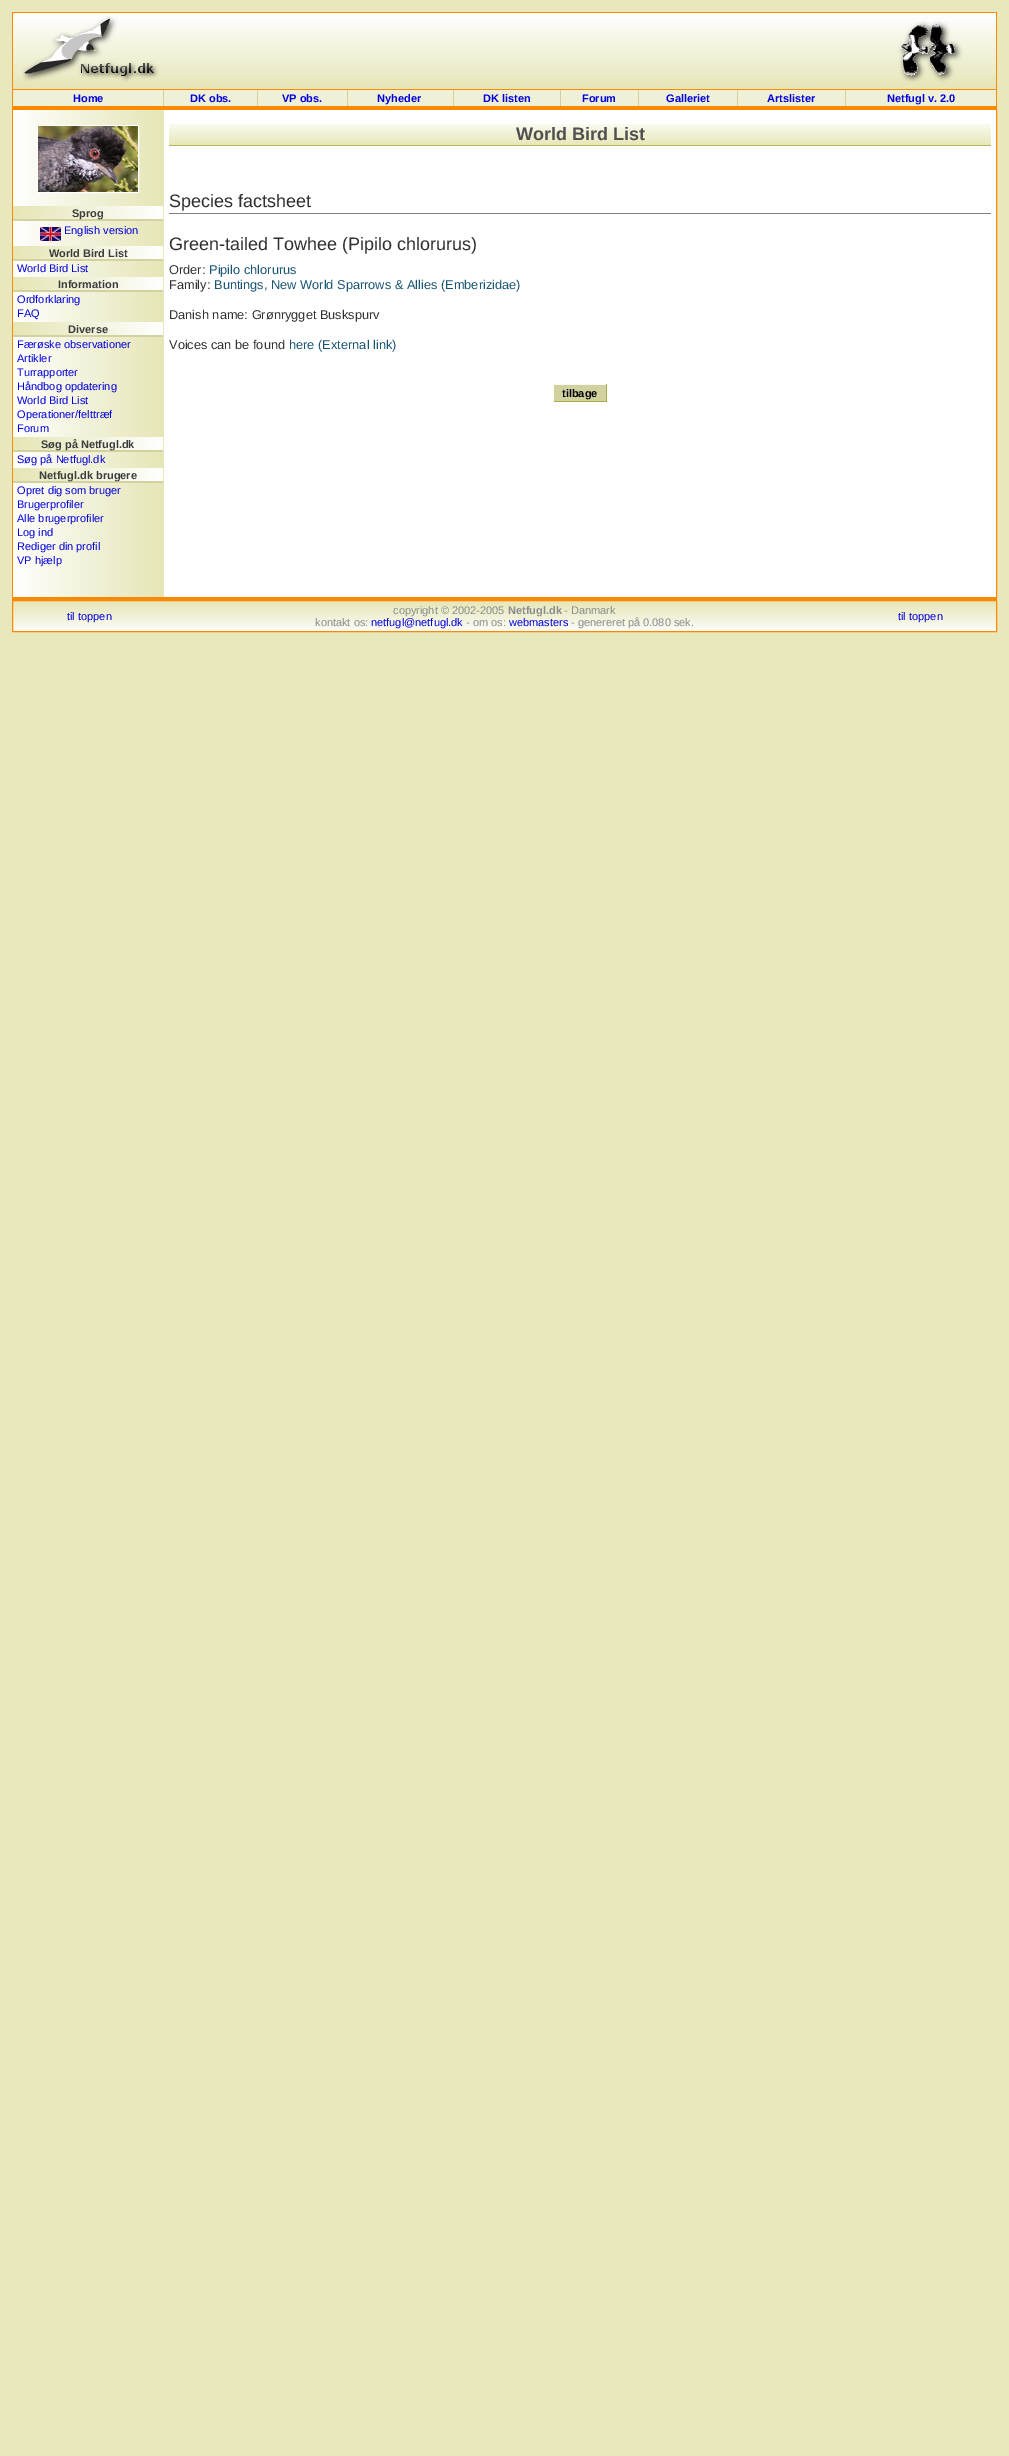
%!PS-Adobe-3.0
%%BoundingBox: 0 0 1009 2456
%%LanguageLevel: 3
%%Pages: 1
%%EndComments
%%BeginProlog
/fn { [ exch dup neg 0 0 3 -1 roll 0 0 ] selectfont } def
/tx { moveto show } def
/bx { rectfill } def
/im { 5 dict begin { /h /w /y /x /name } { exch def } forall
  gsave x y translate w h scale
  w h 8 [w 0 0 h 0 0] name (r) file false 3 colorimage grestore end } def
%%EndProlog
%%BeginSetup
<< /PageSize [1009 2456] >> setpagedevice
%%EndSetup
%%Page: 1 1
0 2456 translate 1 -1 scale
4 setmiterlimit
0.91 0.91 0.737 setrgbcolor
0 0 1009 2456 bx
0.902 0.902 0.722 setrgbcolor
13 83 983 6 bx
(image0.raw) 13 13 983 70 im
0.992 0.537 0 setrgbcolor
12 12 985 1 bx
996 12 1 77 bx
12 12 1 77 bx
(image1.raw) 22 16 137 66 im
(image2.raw) 898 21 65 61 im
0.941 0.941 0.843 setrgbcolor
13 90 983 16 bx
0.992 0.537 0 setrgbcolor
12 89 985 1 bx
12 106 985 1 bx
12 89 1 20 bx
0.824 0.824 0.627 setrgbcolor
163 90 1 16 bx
/LiberationSans-Bold 11 fn
0 0 0.863 setrgbcolor
(Home) 73 102 tx
0.824 0.824 0.627 setrgbcolor
257 90 1 16 bx
0 0 0.863 setrgbcolor
(DK obs.) 190 102 tx
0.824 0.824 0.627 setrgbcolor
347 90 1 16 bx
0 0 0.863 setrgbcolor
(VP obs.) 282 102 tx
0.824 0.824 0.627 setrgbcolor
453 90 1 16 bx
0 0 0.863 setrgbcolor
(Nyheder) 377 102 tx
0.824 0.824 0.627 setrgbcolor
560 90 1 16 bx
0 0 0.863 setrgbcolor
(DK listen) 483 102 tx
0.824 0.824 0.627 setrgbcolor
638 90 1 16 bx
0 0 0.863 setrgbcolor
(Forum) 582 102 tx
0.824 0.824 0.627 setrgbcolor
737 90 1 16 bx
0 0 0.863 setrgbcolor
(Galleriet) 666 102 tx
0.824 0.824 0.627 setrgbcolor
845 90 1 16 bx
0 0 0.863 setrgbcolor
(Artslister) 767 102 tx
0.992 0.537 0 setrgbcolor
996 90 1 16 bx
0 0 0.863 setrgbcolor
(Netfugl v. 2.0) 887 102 tx
0.992 0.537 0 setrgbcolor
13 107 984 2 bx
12.5 109.5 984 488 rectstroke
(image3.raw) 13 110 150 487 im
0.902 0.902 0.714 setrgbcolor
163 110 1 487 bx
1 setgray
37.5 125.5 101 67 rectstroke
(image4.raw) 38 126 100 66 im
(image5.raw) 13 206 150 13 im
0.824 0.824 0.627 setrgbcolor
13 219 150 2 bx
0.235 setgray
(Sprog) 72 217 tx
(image6.raw) 40 227 21 14 im
/LiberationSans-Regular 11 fn
0 0 0.863 setrgbcolor
(English version) 64 234 tx
(image5.raw) 13 246 150 13 im
0.824 0.824 0.627 setrgbcolor
13 259 150 2 bx
/LiberationSans-Bold 11 fn
0.235 setgray
(World Bird List) 49 257 tx
/LiberationSans-Regular 11 fn
0 0 0.863 setrgbcolor
(World Bird List) 17 272 tx
(image5.raw) 13 277 150 13 im
0.824 0.824 0.627 setrgbcolor
13 290 150 2 bx
/LiberationSans-Bold 11 fn
0.235 setgray
(Information) 58 288 tx
/LiberationSans-Regular 11 fn
0 0 0.863 setrgbcolor
(Ordforklaring) 17 303 tx
(FAQ) 17 317 tx
(image5.raw) 13 322 150 13 im
0.824 0.824 0.627 setrgbcolor
13 335 150 2 bx
/LiberationSans-Bold 11 fn
0.235 setgray
(Diverse) 68 333 tx
/LiberationSans-Regular 11 fn
0 0 0.863 setrgbcolor
(Færøske observationer) 17 348 tx
(Artikler) 17 362 tx
(Turrapporter) 17 376 tx
(Håndbog opdatering) 17 390 tx
(World Bird List) 17 404 tx
(Operationer/felttræf) 17 418 tx
(Forum) 17 432 tx
(image5.raw) 13 437 150 13 im
0.824 0.824 0.627 setrgbcolor
13 450 150 2 bx
/LiberationSans-Bold 11 fn
0.235 setgray
(Søg på Netfugl.dk) 41 448 tx
/LiberationSans-Regular 11 fn
0 0 0.863 setrgbcolor
(Søg på Netfugl.dk) 17 463 tx
(image5.raw) 13 468 150 13 im
0.824 0.824 0.627 setrgbcolor
13 481 150 2 bx
/LiberationSans-Bold 11 fn
0.235 setgray
(Netfugl.dk brugere) 39 479 tx
/LiberationSans-Regular 11 fn
0 0 0.863 setrgbcolor
(Opret dig som bruger) 17 494 tx
(Brugerprofiler) 17 508 tx
(Alle brugerprofiler) 17 522 tx
(Log ind) 17 536 tx
(Rediger din profil) 17 550 tx
(VP hjælp) 17 564 tx
1 setgray
164 110 832 487 bx
0.902 0.902 0.714 setrgbcolor
169 144 822 1 bx
(image7.raw) 169 124 822 20 im
0.71 0.71 0.392 setrgbcolor
169 145 822 1 bx
/LiberationSans-Bold 18 fn
0.314 setgray
(World Bird List) 516 140 tx
0.502 setgray
169 213 822 1 bx
/LiberationSans-Regular 18 fn
0.188 setgray
(Species factsheet) 169 207 tx
(Green-tailed Towhee \(Pipilo chlorurus\)) 169 250 tx
/LiberationSans-Regular 12.8 fn
(Order:) 169 274 tx
0.094 0.333 0.455 setrgbcolor
(Pipilo chlorurus) 209 274 tx
0.188 setgray
(Family:) 169 289 tx
0.094 0.333 0.455 setrgbcolor
(Buntings, New World Sparrows & Allies \(Emberizidae\)) 214 289 tx
0.188 setgray
(Danish name: Grønrygget Buskspurv) 169 319 tx
(Voices can be found) 169 349 tx
0.094 0.333 0.455 setrgbcolor
(here \(External link\)) 289 349 tx
0.824 0.824 0.627 setrgbcolor
554 385 52 16 bx
0.988 0.988 0.961 setrgbcolor
553 384 54 1 bx
0.667 0.667 0.302 setrgbcolor
606 384 1 18 bx
553 401 54 1 bx
0.988 0.988 0.961 setrgbcolor
553 384 1 18 bx
/LiberationSans-Bold 11 fn
0 setgray
(tilbage) 562 397 tx
0.992 0.537 0 setrgbcolor
996 598 1 2 bx
12 598 984 2 bx
(image8.raw) 13 601 983 30 im
12.5 600.5 984 31 rectstroke
/LiberationSans-Regular 11 fn
0 0 0.863 setrgbcolor
(til toppen) 67 620 tx
0.549 setgray
(copyright © 2002-2005) 393 614 tx
/LiberationSans-Bold 11 fn
(Netfugl.dk) 508 614 tx
/LiberationSans-Regular 11 fn
(- Danmark) 564 614 tx
(kontakt os:) 315 626 tx
0 0 0.863 setrgbcolor
(netfugl@netfugl.dk) 371 626 tx
0.549 setgray
(- om os:) 466 626 tx
0 0 0.863 setrgbcolor
(webmasters) 509 626 tx
0.549 setgray
(- genereret på 0.080 sek.) 571 626 tx
0 0 0.863 setrgbcolor
(til toppen) 898 620 tx
showpage
%%EOF
